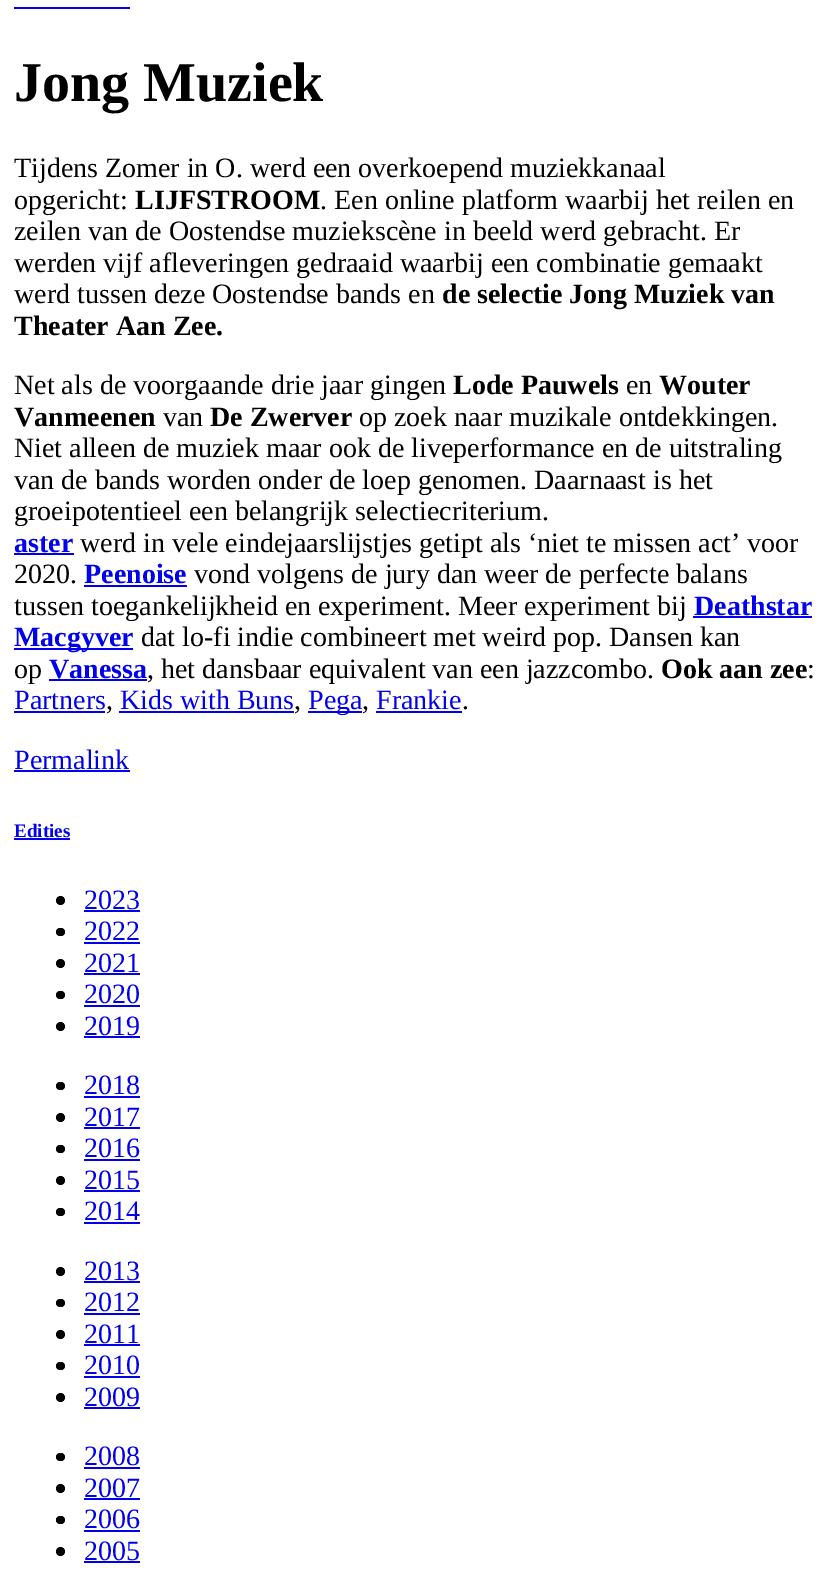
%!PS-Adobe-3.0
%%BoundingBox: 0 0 831 1569
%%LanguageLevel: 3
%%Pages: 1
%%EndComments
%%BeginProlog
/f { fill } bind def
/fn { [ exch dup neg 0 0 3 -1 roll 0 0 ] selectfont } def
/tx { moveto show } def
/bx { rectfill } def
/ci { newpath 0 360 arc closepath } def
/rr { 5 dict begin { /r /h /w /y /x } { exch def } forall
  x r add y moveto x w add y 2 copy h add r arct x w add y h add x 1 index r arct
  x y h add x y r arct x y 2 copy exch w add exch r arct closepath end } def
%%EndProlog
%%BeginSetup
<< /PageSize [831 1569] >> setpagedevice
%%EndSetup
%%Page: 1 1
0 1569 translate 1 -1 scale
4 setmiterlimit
1 setgray
0 0 831 1569 bx
0 0 0.933 setrgbcolor
14 7 116 2 bx
/LiberationSerif-Bold 56 fn
0 setgray
(Jong Muziek) 14 101 tx
/LiberationSerif-Regular 28 fn
(Tijdens Zomer in O. werd een overkoepend muziekkanaal) 14 177 tx
(opgericht:) 14 209 tx
/LiberationSerif-Bold 28 fn
(LIJFSTROOM) 135 209 tx
/LiberationSerif-Regular 28 fn
(. Een online platform waarbij het reilen en) 320 209 tx
(zeilen van de Oostendse muziekscène in beeld werd gebracht. Er) 14 240 tx
(werden vijf afleveringen gedraaid waarbij een combinatie gemaakt) 14 272 tx
(werd tussen deze Oostendse bands en) 14 303 tx
/LiberationSerif-Bold 28 fn
(de selectie Jong Muziek van) 442 303 tx
(Theater Aan Zee.) 14 335 tx
/LiberationSerif-Regular 28 fn
(Net als de voorgaande drie jaar gingen) 14 394 tx
/LiberationSerif-Bold 28 fn
(Lode Pauwels) 453 394 tx
/LiberationSerif-Regular 28 fn
(en) 626 394 tx
/LiberationSerif-Bold 28 fn
(Wouter) 659 394 tx
(Vanmeenen) 14 426 tx
/LiberationSerif-Regular 28 fn
(van) 163 426 tx
/LiberationSerif-Bold 28 fn
(De Zwerver) 210 426 tx
/LiberationSerif-Regular 28 fn
(op zoek naar muzikale ontdekkingen.) 359 426 tx
(Niet alleen de muziek maar ook de liveperformance en de uitstraling) 14 457 tx
(van de bands worden onder de loep genomen. Daarnaast is het) 14 489 tx
(groeipotentieel een belangrijk selectiecriterium.) 14 520 tx
/LiberationSerif-Bold 28 fn
0 0 0.933 setrgbcolor
(aster) 14 552 tx
14 553 60 2 bx
/LiberationSerif-Regular 28 fn
0 setgray
(werd in vele eindejaarslijstjes getipt als ‘niet te missen act’ voor) 80 552 tx
(2020.) 14 583 tx
/LiberationSerif-Bold 28 fn
0 0 0.933 setrgbcolor
(Peenoise) 84 583 tx
84 585 103 2 bx
/LiberationSerif-Regular 28 fn
0 setgray
(vond volgens de jury dan weer de perfecte balans) 194 583 tx
(tussen toegankelijkheid en experiment. Meer experiment bij) 14 615 tx
/LiberationSerif-Bold 28 fn
0 0 0.933 setrgbcolor
(Deathstar) 694 615 tx
693 616 119 2 bx
14 648 119 2 bx
(Macgyver) 14 646 tx
/LiberationSerif-Regular 28 fn
0 setgray
(dat lo-fi indie combineert met weird pop. Dansen kan) 141 646 tx
(op) 14 678 tx
/LiberationSerif-Bold 28 fn
0 0 0.933 setrgbcolor
(Vanessa) 49 678 tx
49 679 98 2 bx
/LiberationSerif-Regular 28 fn
0 setgray
(, het dansbaar equivalent van een jazzcombo.) 147 678 tx
/LiberationSerif-Bold 28 fn
(Ook aan zee) 661 678 tx
/LiberationSerif-Regular 28 fn
(:) 807 678 tx
0 0 0.933 setrgbcolor
(Partners) 14 709 tx
14 711 91 2 bx
0 setgray
(,) 106 709 tx
0 0 0.933 setrgbcolor
(Kids with Buns) 120 709 tx
119 711 175 2 bx
0 setgray
(,) 294 709 tx
0 0 0.933 setrgbcolor
308 711 54 2 bx
(Pega) 308 709 tx
0 setgray
(,) 362 709 tx
0 0 0.933 setrgbcolor
(Frankie) 376 709 tx
376 711 86 2 bx
0 setgray
(.) 462 709 tx
0 0 0.933 setrgbcolor
(Permalink) 14 769 tx
14 770 116 2 bx
/LiberationSerif-Bold 19 fn
(Edities) 14 837 tx
14 838 56 2 bx
0 setgray
60.5 900.5 4.5 ci f
/LiberationSerif-Regular 28 fn
0 0 0.933 setrgbcolor
(2023) 84 909 tx
84 910 56 2 bx
0 setgray
56 928 9 8 4 rr f
0 0 0.933 setrgbcolor
(2022) 84 940 tx
84 942 56 2 bx
0 setgray
60.5 963.5 4.5 ci f
0 0 0.933 setrgbcolor
(2021) 84 972 tx
84 973 56 2 bx
0 setgray
56 991 9 8 4 rr f
0 0 0.933 setrgbcolor
(2020) 84 1003 tx
84 1005 56 2 bx
0 setgray
60.5 1026.5 4.5 ci f
0 0 0.933 setrgbcolor
(2019) 84 1035 tx
84 1036 56 2 bx
0 setgray
56 1082 9 8 4 rr f
0 0 0.933 setrgbcolor
(2018) 84 1094 tx
84 1096 56 2 bx
0 setgray
60.5 1117.5 4.5 ci f
0 0 0.933 setrgbcolor
(2017) 84 1126 tx
84 1127 56 2 bx
0 setgray
56 1145 9 8 4 rr f
0 0 0.933 setrgbcolor
(2016) 84 1157 tx
84 1159 56 2 bx
0 setgray
60.5 1180.5 4.5 ci f
0 0 0.933 setrgbcolor
(2015) 84 1189 tx
84 1190 56 2 bx
0 setgray
56 1208 9 8 4 rr f
0 0 0.933 setrgbcolor
(2014) 84 1220 tx
84 1222 56 2 bx
0 setgray
60.5 1271.5 4.5 ci f
0 0 0.933 setrgbcolor
(2013) 84 1280 tx
84 1281 56 2 bx
0 setgray
56 1299 9 8 4 rr f
0 0 0.933 setrgbcolor
(2012) 84 1311 tx
84 1313 56 2 bx
0 setgray
60.5 1334.5 4.5 ci f
0 0 0.933 setrgbcolor
(2011) 84 1343 tx
84 1344 56 2 bx
0 setgray
56 1362 9 8 4 rr f
0 0 0.933 setrgbcolor
(2010) 84 1374 tx
84 1376 56 2 bx
0 setgray
60.5 1397.5 4.5 ci f
0 0 0.933 setrgbcolor
(2009) 84 1406 tx
84 1407 56 2 bx
0 setgray
56 1453 9 8 4 rr f
0 0 0.933 setrgbcolor
(2008) 84 1465 tx
84 1467 56 2 bx
0 setgray
60.5 1488.5 4.5 ci f
0 0 0.933 setrgbcolor
(2007) 84 1497 tx
84 1498 56 2 bx
0 setgray
56 1516 9 8 4 rr f
0 0 0.933 setrgbcolor
(2006) 84 1528 tx
84 1530 56 2 bx
0 setgray
60.5 1551.5 4.5 ci f
0 0 0.933 setrgbcolor
(2005) 84 1560 tx
84 1561 56 2 bx
showpage
%%EOF
